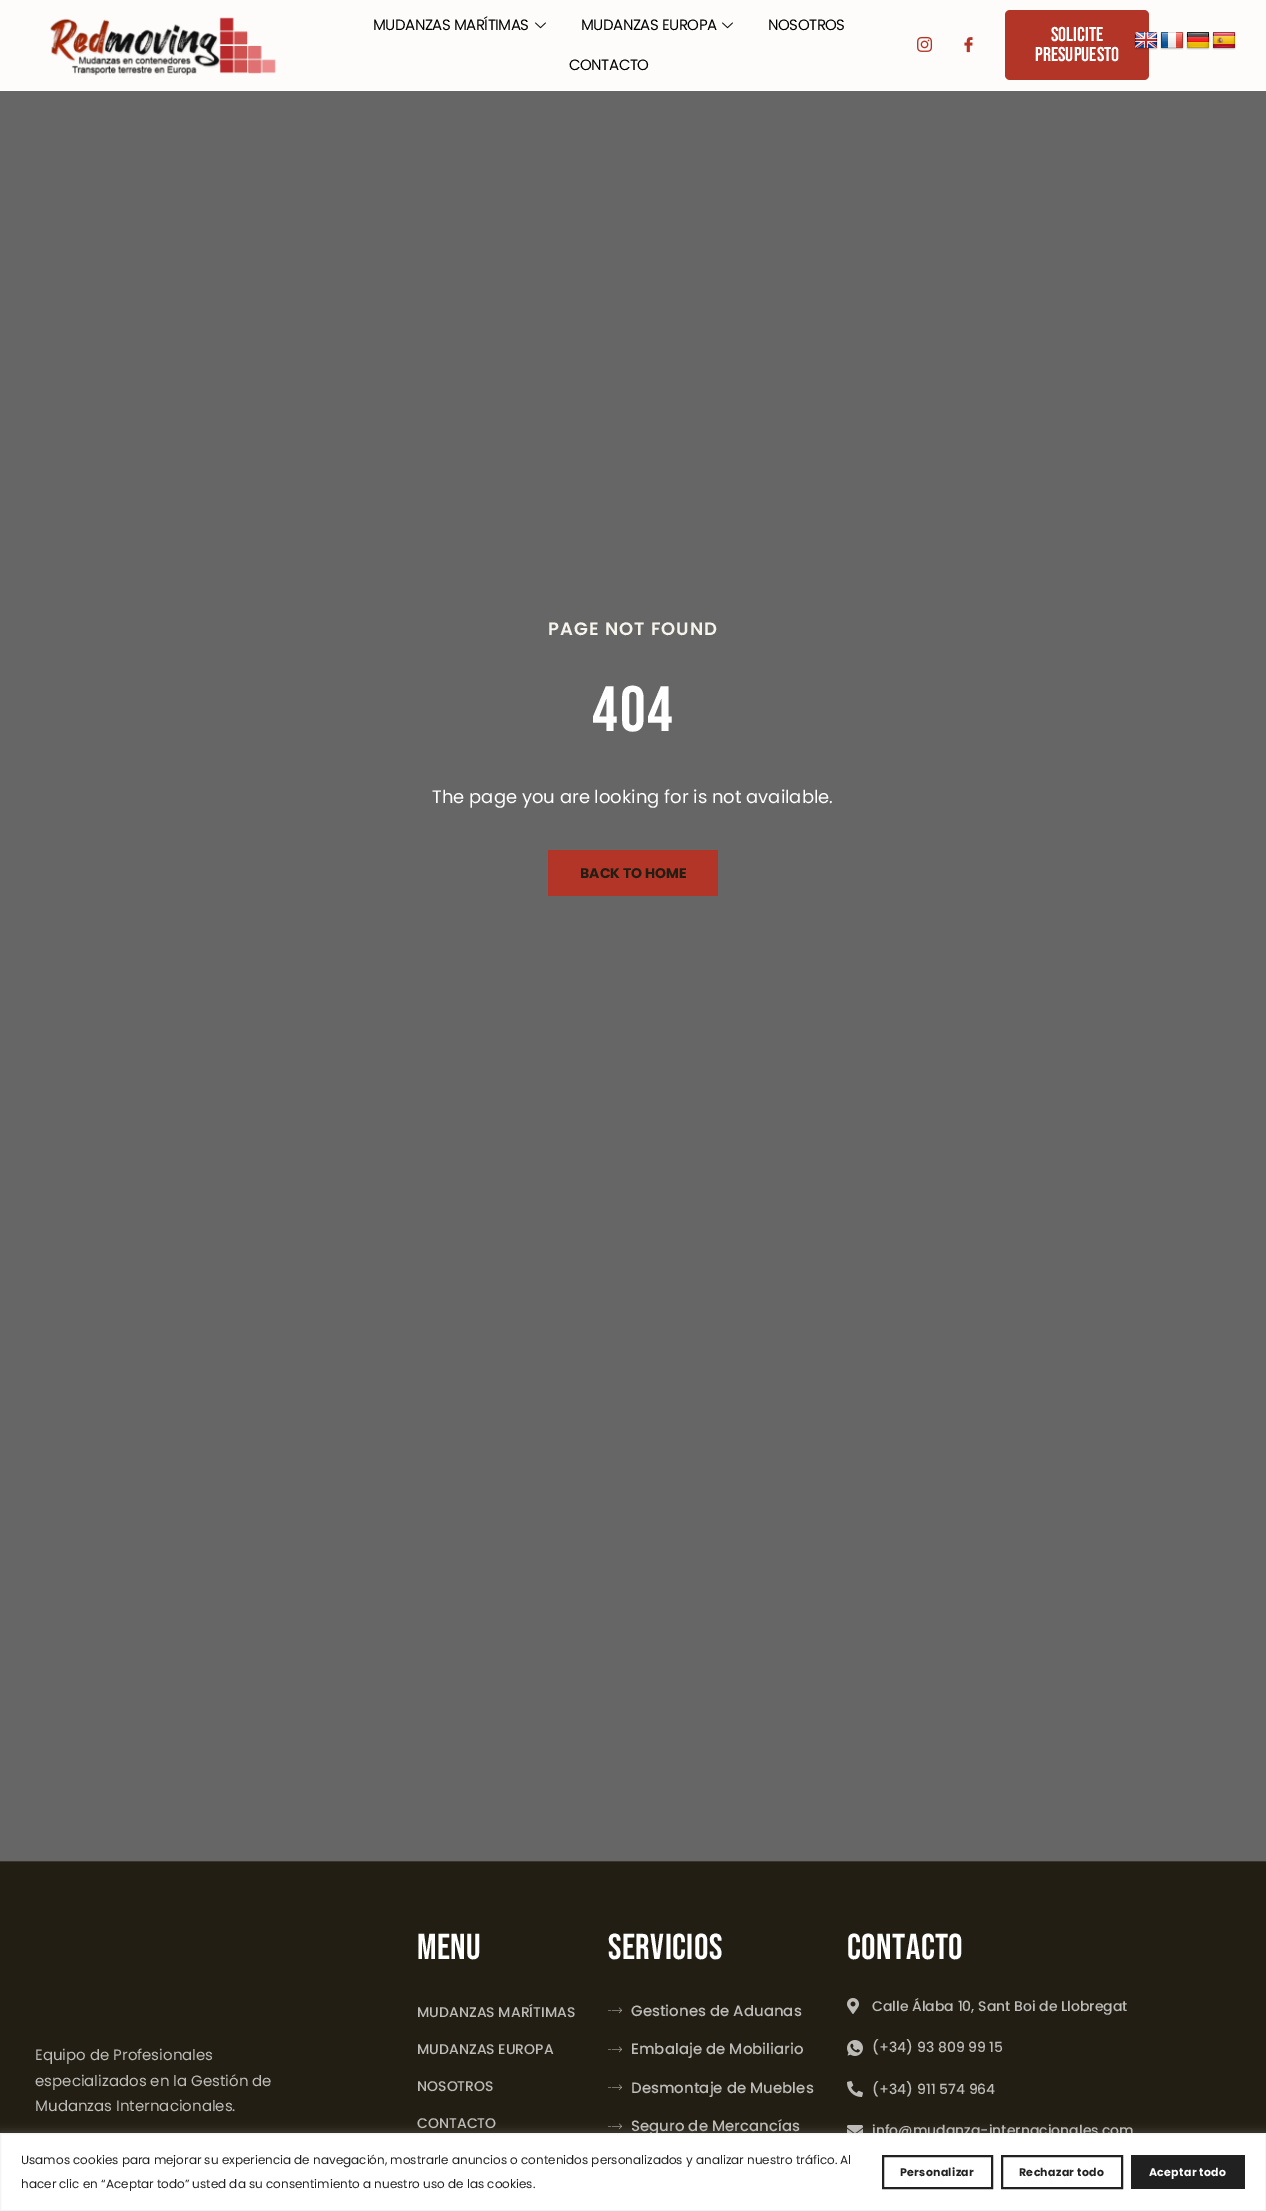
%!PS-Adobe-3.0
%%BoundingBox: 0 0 1266 2211
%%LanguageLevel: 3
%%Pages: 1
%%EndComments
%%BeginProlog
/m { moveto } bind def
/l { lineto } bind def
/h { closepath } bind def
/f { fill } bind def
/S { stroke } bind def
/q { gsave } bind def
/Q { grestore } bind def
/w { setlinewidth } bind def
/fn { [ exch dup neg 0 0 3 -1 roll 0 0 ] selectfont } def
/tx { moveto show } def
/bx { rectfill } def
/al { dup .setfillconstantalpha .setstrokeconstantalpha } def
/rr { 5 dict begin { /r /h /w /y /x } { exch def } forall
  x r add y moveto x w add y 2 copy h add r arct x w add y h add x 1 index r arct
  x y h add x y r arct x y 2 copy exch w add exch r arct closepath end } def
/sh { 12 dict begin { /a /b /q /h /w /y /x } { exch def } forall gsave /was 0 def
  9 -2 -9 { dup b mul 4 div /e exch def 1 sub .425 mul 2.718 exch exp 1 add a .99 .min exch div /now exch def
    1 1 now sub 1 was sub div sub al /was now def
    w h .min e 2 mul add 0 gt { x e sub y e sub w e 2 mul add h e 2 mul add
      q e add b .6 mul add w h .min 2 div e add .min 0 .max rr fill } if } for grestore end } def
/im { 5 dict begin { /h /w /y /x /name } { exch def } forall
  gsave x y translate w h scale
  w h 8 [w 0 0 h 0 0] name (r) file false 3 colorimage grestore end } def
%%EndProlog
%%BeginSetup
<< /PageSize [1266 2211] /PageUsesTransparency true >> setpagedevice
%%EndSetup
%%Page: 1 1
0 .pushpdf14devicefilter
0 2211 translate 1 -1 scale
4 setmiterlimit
0.4 setgray
0 0 1266 2211 bx
1 setgray
0 90 1266 1 bx
0.992 0.988 0.98 setrgbcolor
0 0 1266 90 bx
(image0.raw) 50 17 226 59 im
/Poppins-Regular 15 fn
0 setgray
373 30 m -0.5 0 (MUDANZAS MARÍTIMAS) ashow
(image1.raw) 535 22 11 7 im
581 30 m -0.5 0 (MUDANZAS EUROPA) ashow
(image1.raw) 722 22 11 7 im
768 30 m -0.5 0 (NOSOTROS) ashow
569 70 m -0.5 0 (CONTACTO) ashow
(image2.raw) 917 36 16 16 im
(image3.raw) 964 37 9 16 im
0.702 0.208 0.157 setrgbcolor
1005 10 144 70 5 rr f
/BebasNeue-Regular 20 fn
1 setgray
(SOLICITE) 1051 41 tx
(PRESUPUESTO) 1035 61 tx
(image4.raw) 1134 32 24 18 im
(image5.raw) 1160 32 24 18 im
(image6.raw) 1186 32 24 18 im
(image7.raw) 1212 32 24 18 im
/Poppins-SemiBold 18 fn
0.965 0.957 0.925 setrgbcolor
548 635 m 1 0 (PAGE NOT FOUND) ashow
/BebasNeue-Regular 64 fn
1 setgray
592 731 m 2 0 (404) ashow
/Poppins-Regular 18 fn
(The page you are looking for is not available.) 432 803 tx
0.702 0.208 0.157 setrgbcolor
548 850 170 46 bx
/Poppins-Bold 14 fn
0.133 0.118 0.075 setrgbcolor
(BACK TO HOME) 580 878 tx
0 1862 1266 271 bx
0.22 0.208 0.169 setrgbcolor
0 1861 1266 1 bx
/Poppins-Regular 15 fn
0.741 0.737 0.722 setrgbcolor
(Equipo de Profesionales) 35 2060 tx
(especializados en la Gestión de) 35 2086 tx
(Mudanzas Internacionales.) 35 2111 tx
/BebasNeue-Regular 36 fn
1 setgray
417 1959 m 0.5 0 (MENU) ashow
/Poppins-Medium 14 fn
0.741 0.737 0.722 setrgbcolor
(MUDANZAS MARÍTIMAS) 417 2017 tx
(MUDANZAS EUROPA) 417 2054 tx
(NOSOTROS) 417 2091 tx
(CONTACTO) 417 2128 tx
/BebasNeue-Regular 36 fn
1 setgray
608 1959 m 0.5 0 (Servicios) ashow
(image8.raw) 608 2007 14 7 im
/Poppins-Medium 15 fn
0.741 0.737 0.722 setrgbcolor
(Gestiones de Aduanas) 631 2016 tx
(image8.raw) 608 2046 14 7 im
(Embalaje de Mobiliario) 631 2054 tx
(image8.raw) 608 2084 14 7 im
(Desmontaje de Muebles) 631 2093 tx
(image8.raw) 608 2123 14 7 im
(Seguro de Mercancías) 631 2131 tx
/BebasNeue-Regular 36 fn
1 setgray
847 1959 m 0.5 0 (Contacto) ashow
(image9.raw) 847 1998 12 16 im
/Poppins-Medium 14 fn
0.741 0.737 0.722 setrgbcolor
(Calle Álaba 10, Sant Boi de Llobregat) 872 2011 tx
(image10.raw) 847 2040 16 16 im
(\(+34\) 93 809 99 15) 872 2052 tx
(image11.raw) 847 2081 16 16 im
(\(+34\) 911 574 964) 872 2094 tx
(image12.raw) 847 2125 16 8 im
(info@mudanza-internacionales.com) 872 2135 tx
0.675 0.671 0.671 setrgbcolor
0 2132 1266 78 0 5 0.3 sh
1 setgray
0.5 2133.5 m 1265.5 2133.5 l 1265.5 2210.5 l 0.5 2210.5 l h q f Q
0.957 setgray
S
/Poppins-Regular 12 fn
0.129 setgray
(Usamos cookies para mejorar su experiencia de navegación, mostrarle anuncios o contenidos personalizados y analizar nuestro tráfico. Al) 21 2164 tx
(hacer clic en “Aceptar todo” usted da su consentimiento a nuestro uso de las cookies.) 21 2188 tx
2 w
883 2156 109 32 rectstroke
/Poppins-Bold 11 fn
900 2176 m 0.3 0 (Personalizar) ashow
1002 2156 120 32 rectstroke
1019 2176 m 0.3 0 (Rechazar todo) ashow
1131 2155 114 34 bx
1 setgray
1149 2176 m 0.3 0 (Aceptar todo) ashow
.poppdf14devicefilter showpage
%%EOF
